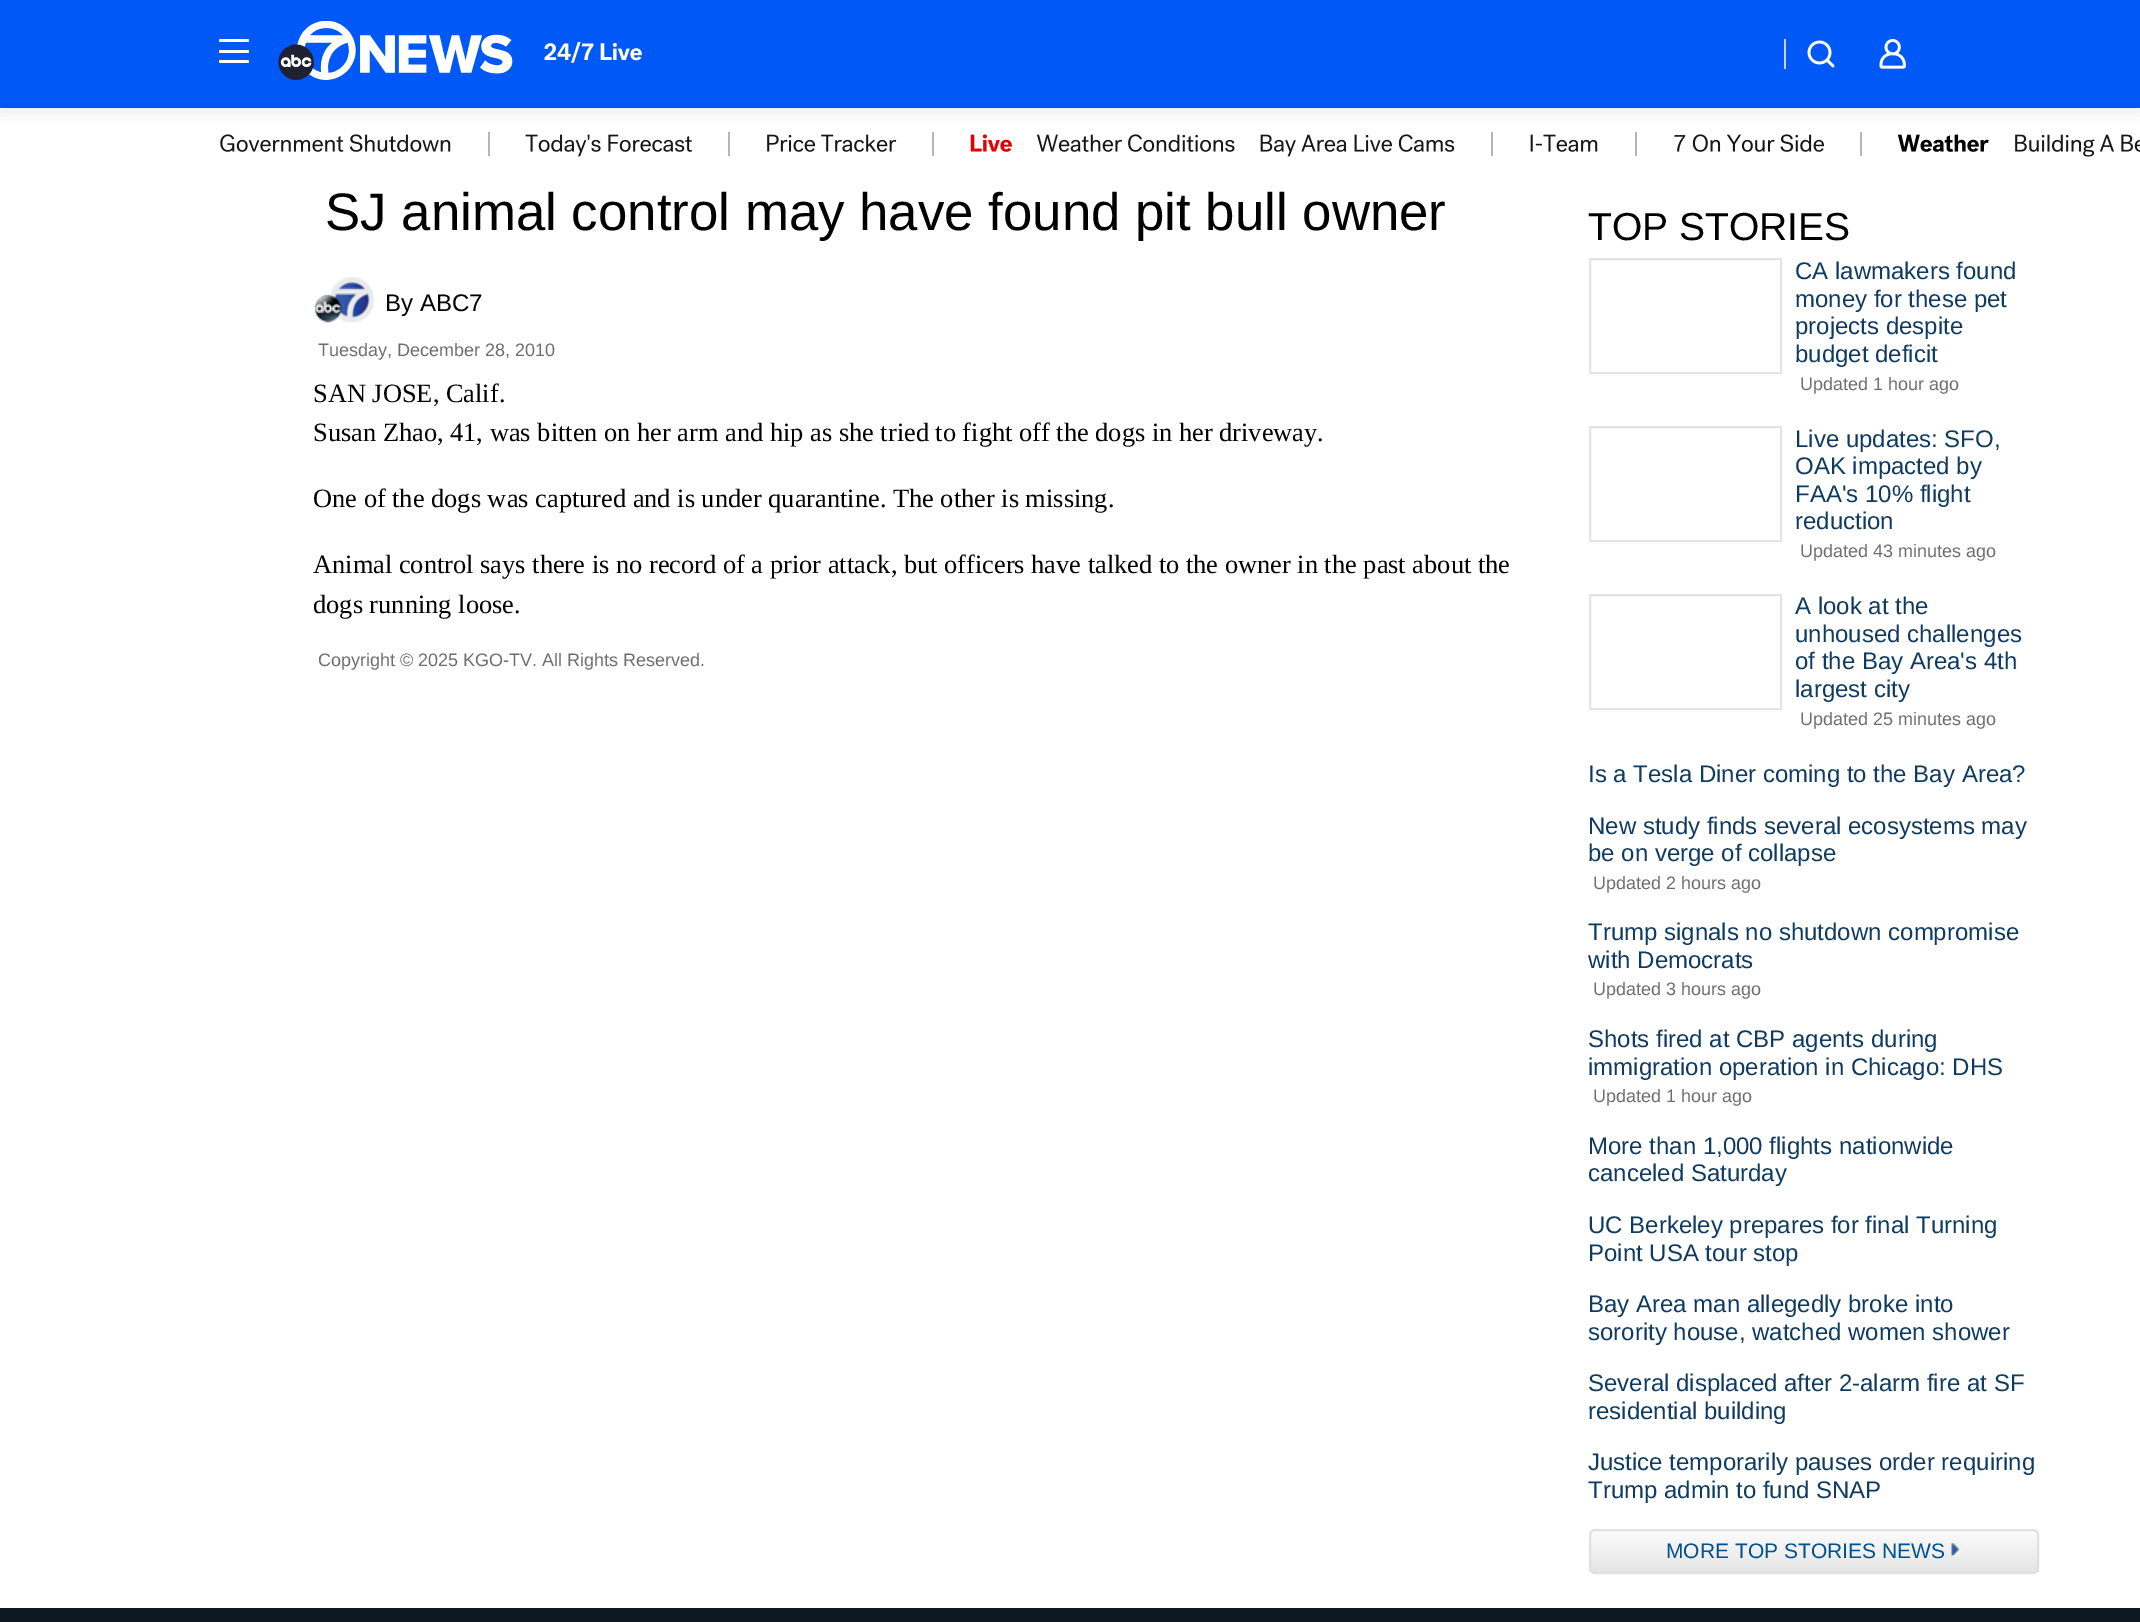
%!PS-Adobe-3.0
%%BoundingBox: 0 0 2140 1622
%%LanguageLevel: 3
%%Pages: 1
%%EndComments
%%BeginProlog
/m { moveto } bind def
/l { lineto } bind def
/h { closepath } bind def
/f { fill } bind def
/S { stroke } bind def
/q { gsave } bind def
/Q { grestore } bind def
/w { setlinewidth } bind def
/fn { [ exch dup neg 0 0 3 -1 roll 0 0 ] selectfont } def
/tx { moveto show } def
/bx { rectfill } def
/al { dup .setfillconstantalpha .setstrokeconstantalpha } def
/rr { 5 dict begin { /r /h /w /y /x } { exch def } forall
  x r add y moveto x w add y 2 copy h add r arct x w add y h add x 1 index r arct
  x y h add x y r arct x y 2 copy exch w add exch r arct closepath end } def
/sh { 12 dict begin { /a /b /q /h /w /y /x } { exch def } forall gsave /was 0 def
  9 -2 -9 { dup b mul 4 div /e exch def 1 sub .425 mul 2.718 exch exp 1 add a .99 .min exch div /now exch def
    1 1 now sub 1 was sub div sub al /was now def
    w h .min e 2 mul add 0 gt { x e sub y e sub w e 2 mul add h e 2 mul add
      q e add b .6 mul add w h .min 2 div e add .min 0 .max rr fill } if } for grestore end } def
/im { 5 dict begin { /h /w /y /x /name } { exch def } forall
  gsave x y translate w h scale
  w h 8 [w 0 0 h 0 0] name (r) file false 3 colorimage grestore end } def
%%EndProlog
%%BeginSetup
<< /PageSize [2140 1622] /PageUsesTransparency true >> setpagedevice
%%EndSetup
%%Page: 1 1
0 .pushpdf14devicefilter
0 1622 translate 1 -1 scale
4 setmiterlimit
1 setgray
0 0 2140 1622 bx
(image4.raw) 220 134 231 18 im
0.69 0.71 0.745 setrgbcolor
488 132 2 24 bx
(image5.raw) 525 134 167 23 im
728 132 2 24 bx
(image6.raw) 767 134 130 18 im
932 132 2 24 bx
(image7.raw) 970 134 42 18 im
(image8.raw) 1037 134 198 18 im
(image9.raw) 1260 134 195 23 im
1491 132 2 24 bx
(image10.raw) 1530 134 68 18 im
1635 132 2 24 bx
(image11.raw) 1674 134 151 18 im
1860 132 2 24 bx
(image12.raw) 1897 134 92 18 im
(image13.raw) 2015 134 125 23 im
0 setgray
0 3 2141 108 0 7.5 0.08 sh
0 0.345 0.965 setrgbcolor
0 0 2140 108 bx
1 setgray
219 50 30 3 1.5 rr f
219 39 30 3 1.5 rr f
219 60 30 3 1.5 rr f
(image0.raw) 278 21 235 59 im
(image1.raw) 544 41 98 22 im
0.808 0.812 0.812 setrgbcolor
1784 39 2 30 bx
(image2.raw) 1807 40 28 28 im
(image3.raw) 1879 39 27 30 im
/LiberationSans-Regular 52.8 fn
0 setgray
(SJ animal control may have found pit bull owner) 325 230 tx
(image14.raw) 314 277 60 46 im
/LiberationSans-Regular 24 fn
(By ABC7) 385 311 tx
/LiberationSans-Regular 18 fn
0.431 setgray
(Tuesday, December 28, 2010) 318 356 tx
/LiberationSerif-Regular 26.4 fn
0 setgray
(SAN JOSE, Calif.) 313 402 tx
(Susan Zhao, 41, was bitten on her arm and hip as she tried to fight off the dogs in her driveway.) 313 441 tx
(One of the dogs was captured and is under quarantine. The other is missing.) 313 507 tx
(Animal control says there is no record of a prior attack, but officers have talked to the owner in the past about the) 313 573 tx
(dogs running loose.) 313 613 tx
/LiberationSans-Regular 18 fn
0.431 setgray
(Copyright © 2025 KGO-TV. All Rights Reserved.) 318 666 tx
/LiberationSans-Regular 39 fn
0 setgray
(TOP STORIES) 1588 240 tx
0.894 setgray
2 w
1590 259 191 114 rectstroke
/LiberationSans-Regular 24 fn
0.063 0.231 0.38 setrgbcolor
(CA lawmakers found) 1795 279 tx
(money for these pet) 1795 307 tx
(projects despite) 1795 334 tx
(budget deficit) 1795 362 tx
/LiberationSans-Regular 18 fn
0.431 setgray
(Updated 1 hour ago) 1800 390 tx
0.894 setgray
1590 427 191 114 rectstroke
/LiberationSans-Regular 24 fn
0.063 0.231 0.38 setrgbcolor
(Live updates: SFO,) 1795 447 tx
(OAK impacted by) 1795 474 tx
(FAA's 10% flight) 1795 502 tx
(reduction) 1795 529 tx
/LiberationSans-Regular 18 fn
0.431 setgray
(Updated 43 minutes ago) 1800 557 tx
0.894 setgray
1590 595 191 114 rectstroke
/LiberationSans-Regular 24 fn
0.063 0.231 0.38 setrgbcolor
(A look at the) 1795 614 tx
(unhoused challenges) 1795 642 tx
(of the Bay Area's 4th) 1795 669 tx
(largest city) 1795 697 tx
/LiberationSans-Regular 18 fn
0.431 setgray
(Updated 25 minutes ago) 1800 725 tx
/LiberationSans-Regular 24 fn
0.063 0.231 0.38 setrgbcolor
(Is a Tesla Diner coming to the Bay Area?) 1588 782 tx
(New study finds several ecosystems may) 1588 834 tx
(be on verge of collapse) 1588 861 tx
/LiberationSans-Regular 18 fn
0.431 setgray
(Updated 2 hours ago) 1593 889 tx
/LiberationSans-Regular 24 fn
0.063 0.231 0.38 setrgbcolor
(Trump signals no shutdown compromise) 1588 940 tx
(with Democrats) 1588 968 tx
/LiberationSans-Regular 18 fn
0.431 setgray
(Updated 3 hours ago) 1593 995 tx
/LiberationSans-Regular 24 fn
0.063 0.231 0.38 setrgbcolor
(Shots fired at CBP agents during) 1588 1047 tx
(immigration operation in Chicago: DHS) 1588 1075 tx
/LiberationSans-Regular 18 fn
0.431 setgray
(Updated 1 hour ago) 1593 1102 tx
/LiberationSans-Regular 24 fn
0.063 0.231 0.38 setrgbcolor
(More than 1,000 flights nationwide) 1588 1154 tx
(canceled Saturday) 1588 1181 tx
(UC Berkeley prepares for final Turning) 1588 1233 tx
(Point USA tour stop) 1588 1261 tx
(Bay Area man allegedly broke into) 1588 1312 tx
(sorority house, watched women shower) 1588 1340 tx
(Several displaced after 2-alarm fire at SF) 1588 1391 tx
(residential building) 1588 1419 tx
(Justice temporarily pauses order requiring) 1588 1470 tx
(Trump admin to fund SNAP) 1588 1498 tx
q
1589 1529 450 45 6 rr clip newpath
q 1589 1530 m 2039 1530 l 2039 1572 l 1589 1572 l h clip newpath
<< /ShadingType 2 /ColorSpace /DeviceRGB /Coords [1814 1530 1814 1572] /Extend [true true] /Function << /FunctionType 2 /Domain [0 1] /C0 [0.988 0.988 0.988] /C1 [0.898 0.898 0.898] /N 1 >> >> shfill Q
Q
0.878 setgray
1590 1530 448 43 5 rr S
/LiberationSans-Regular 21 fn
0 0.322 0.553 setrgbcolor
(MORE TOP STORIES NEWS) 1666 1558 tx
(image15.raw) 1951 1543 10 14 im
0.051 0.09 0.129 setrgbcolor
0 1608 2140 14 bx
.poppdf14devicefilter showpage
%%EOF
